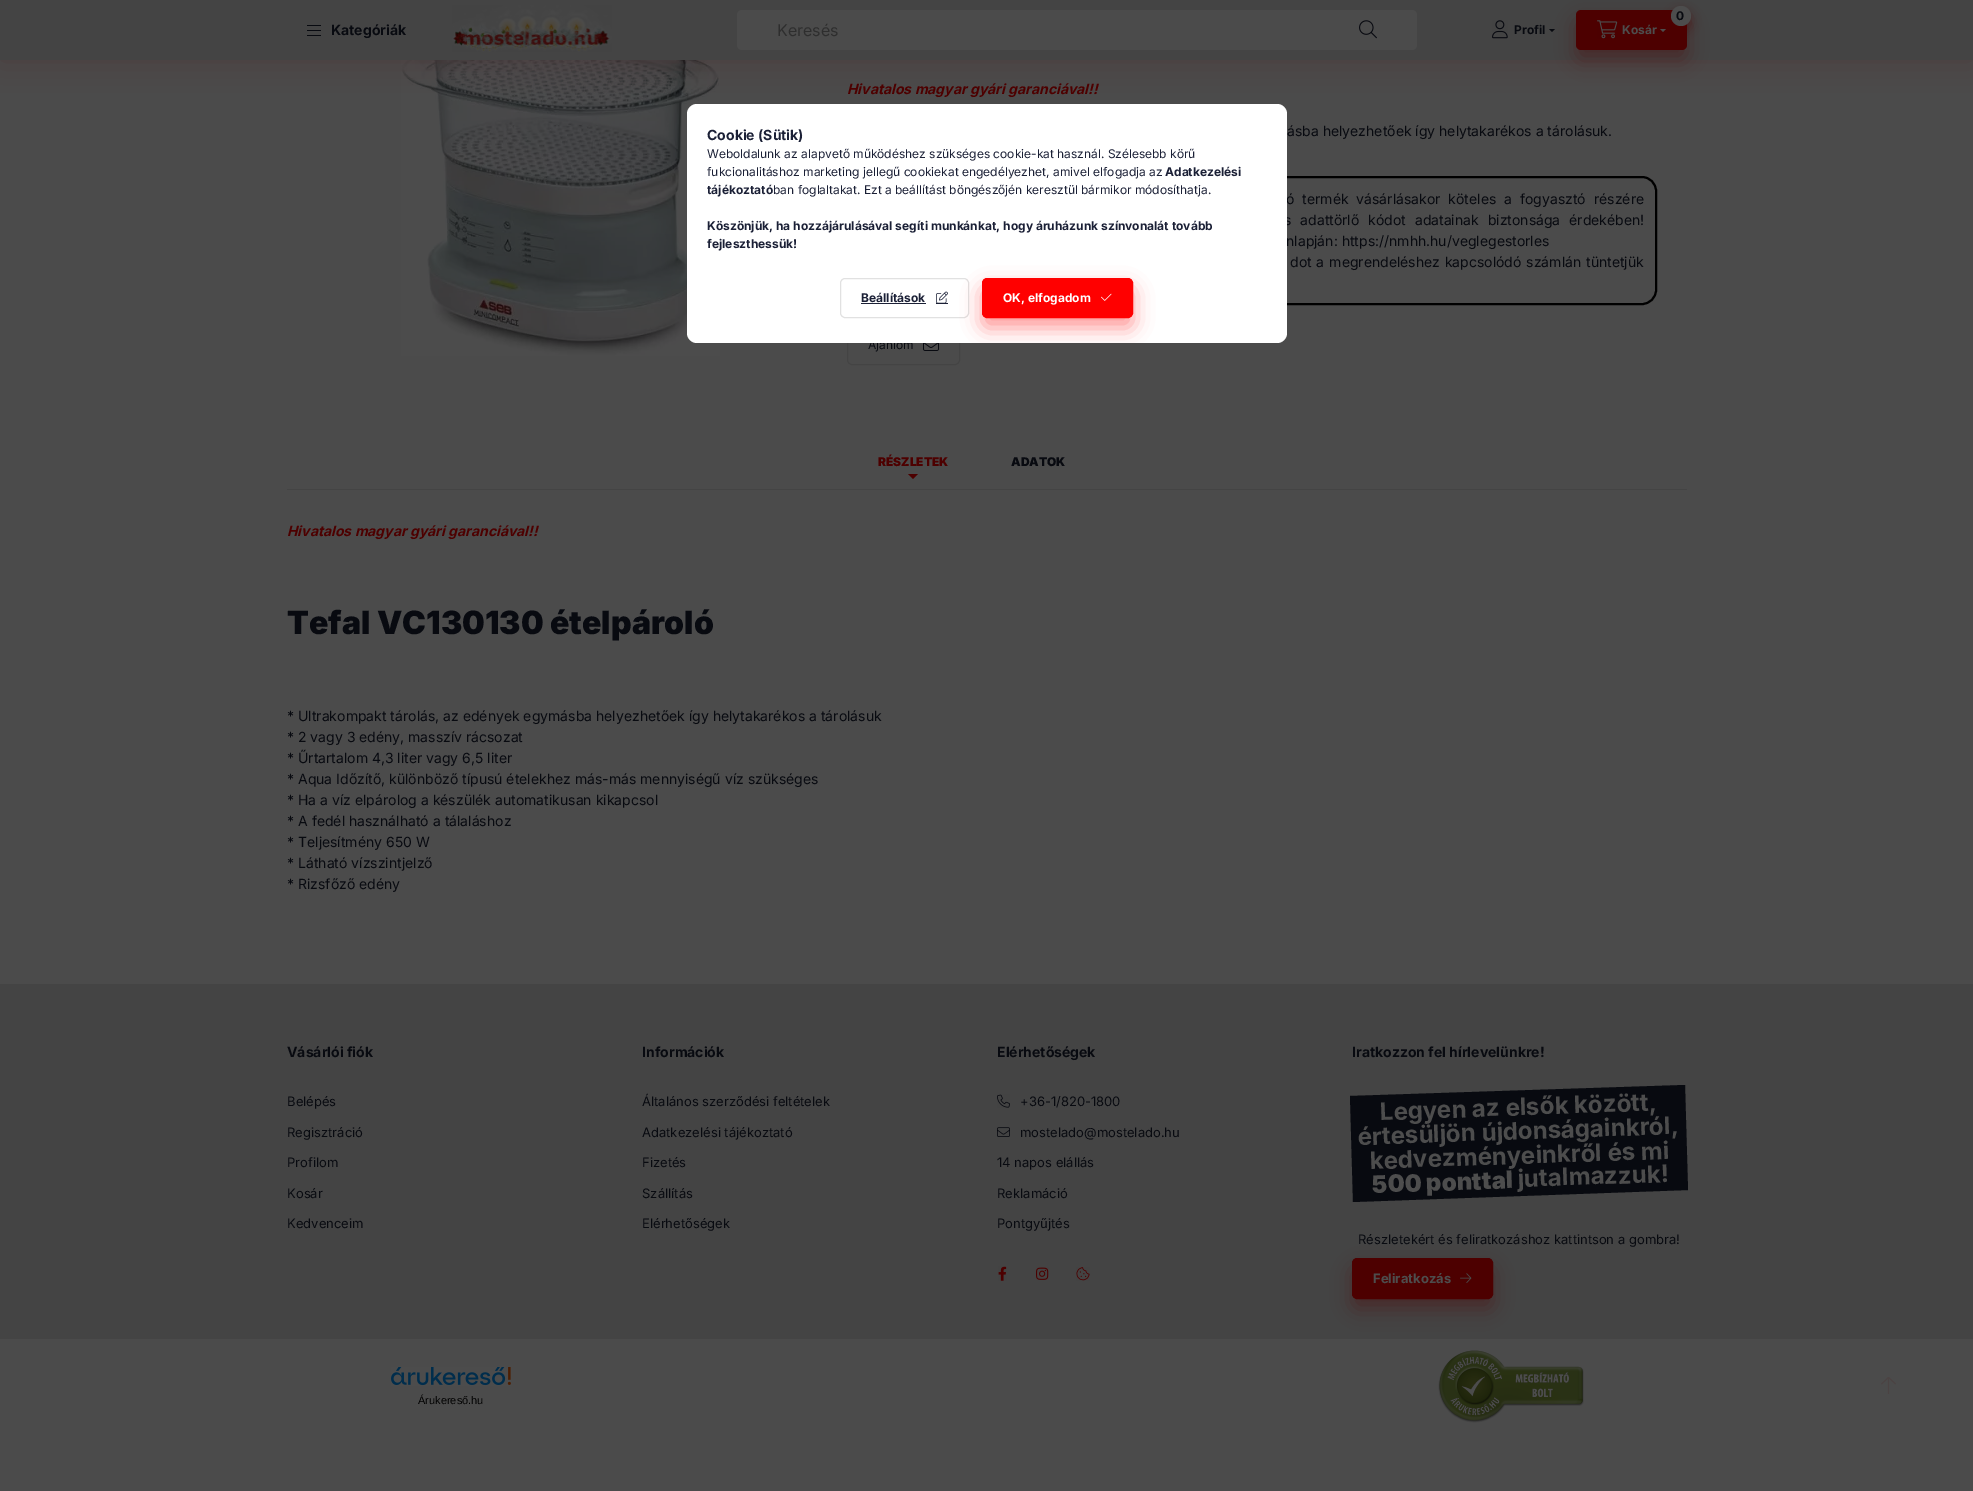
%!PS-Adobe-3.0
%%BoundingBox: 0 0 1973 1491
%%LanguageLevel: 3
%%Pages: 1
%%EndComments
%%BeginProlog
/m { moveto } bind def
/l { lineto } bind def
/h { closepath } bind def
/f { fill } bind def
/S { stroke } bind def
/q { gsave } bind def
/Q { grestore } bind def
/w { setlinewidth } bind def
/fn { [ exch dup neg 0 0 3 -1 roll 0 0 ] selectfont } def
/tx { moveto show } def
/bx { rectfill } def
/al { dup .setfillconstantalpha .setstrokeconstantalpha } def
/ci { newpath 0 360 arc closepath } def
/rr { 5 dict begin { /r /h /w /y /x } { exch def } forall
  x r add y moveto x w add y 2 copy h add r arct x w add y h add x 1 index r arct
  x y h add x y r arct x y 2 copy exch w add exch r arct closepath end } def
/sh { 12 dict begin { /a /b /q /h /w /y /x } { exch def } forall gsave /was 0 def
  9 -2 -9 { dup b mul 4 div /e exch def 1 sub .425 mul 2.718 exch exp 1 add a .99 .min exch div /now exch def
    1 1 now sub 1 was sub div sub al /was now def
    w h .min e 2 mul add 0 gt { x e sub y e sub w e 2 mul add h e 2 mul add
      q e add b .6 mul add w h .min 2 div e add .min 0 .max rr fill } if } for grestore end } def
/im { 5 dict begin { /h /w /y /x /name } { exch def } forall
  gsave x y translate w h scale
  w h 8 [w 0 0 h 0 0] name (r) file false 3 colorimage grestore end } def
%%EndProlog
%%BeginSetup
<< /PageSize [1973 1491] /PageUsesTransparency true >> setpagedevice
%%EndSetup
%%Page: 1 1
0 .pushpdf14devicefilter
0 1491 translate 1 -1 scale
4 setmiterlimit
0.294 setgray
0 0 1973 1491 bx
(image4.raw) 401 60 319 296 im
0.302 0 0 setrgbcolor
0 0 1973 60 0 15 0.2 sh
0.267 setgray
0 0 1973 60 bx
0.031 0.039 0.063 setrgbcolor
307 25 14 1 bx
307 30 14 1 bx
307 35 14 1 bx
/Inter-Bold 14 fn
(Kategóriák) 331 35 tx
(image0.raw) 452 5 160 47 im
0.294 setgray
737 10 680 40 5 rr f
/Inter-Regular 16 fn
0.18 setgray
(Keresés) 777 36 tx
(image1.raw) 1359 20 18 19 im
(image2.raw) 1492 20 16 19 im
/Inter-Bold 12 fn
0.031 0.039 0.063 setrgbcolor
(Profil) 1514 34 tx
0.302 0 0 setrgbcolor
1576 20 111 40 5 10 0.4 sh
0.031 0.039 0.063 setrgbcolor
1549 29 m 1555 29 l 1552 32 l h f
0.302 0 0 setrgbcolor
1576 10 111 40 5 rr f
1671 11 20 20 10 5 0.4 sh
0.302 setgray
1681 16 10 ci f
0.031 0.039 0.063 setrgbcolor
(0) 1676 20 tx
(image3.raw) 1597 20 21 19 im
0.302 setgray
(Kosár) 1622 34 tx
1660 29 m 1666 29 l 1663 32 l h f
/Inter-BoldItalic 14 fn
0.302 0 0 setrgbcolor
(Hivatalos magyar gyári garanciával!!) 847 94 tx
/Inter-Regular 14 fn
0.031 0.039 0.063 setrgbcolor
(ásba helyezhetőek így helytakarékos a tárolásuk.) 1287 136 tx
0 setgray
2 w
858 177 798 127 14 rr S
0.031 0.039 0.063 setrgbcolor
1286 204 m 4 0 32 (ó termék vásárlásakor köteles a fogyasztó részére) widthshow
1284 225 m 5 0 32 (s adattörlő kódot adatainak biztonsága érdekében!) widthshow
(nlapján: https://nmhh.hu/veglegestorles) 1286 246 tx
1290 267 m 1 0 32 (dot a megrendeléshez kapcsolódó számlán tüntetjük) widthshow
0.267 setgray
1 w
847.5 325.5 112 39 4.5 rr S
/Inter-Regular 12 fn
0.031 0.039 0.063 setrgbcolor
(Ajánlom) 868 349 tx
(image5.raw) 923 343 16 8 im
0.267 setgray
287 489 1400 1 bx
/Inter-Black 12 fn
0.302 0 0 setrgbcolor
(RÉSZLETEK) 878 466 tx
908 474 m 918 474 l 913 479 l h f
0.031 0.039 0.063 setrgbcolor
(ADATOK) 1011 466 tx
/Inter-BoldItalic 14 fn
0.302 0 0 setrgbcolor
(Hivatalos magyar gyári garanciával!!) 287 536 tx
/Inter-Black 32 fn
0.031 0.039 0.063 setrgbcolor
(Tefal VC130130 ételpároló) 287 634 tx
/Inter-Regular 14 fn
(* Ultrakompakt tárolás, az edények egymásba helyezhetőek így helytakarékos a tárolásuk) 287 721 tx
(* 2 vagy 3 edény, masszív rácsozat) 287 742 tx
(* Űrtartalom 4,3 liter vagy 6,5 liter) 287 763 tx
(* Aqua Időzítő, különböző típusú ételekhez más-más mennyiségű víz szükséges) 287 784 tx
(* Ha a víz elpárolog a készülék automatikusan kikapcsol) 287 805 tx
(* A fedél használható a tálaláshoz) 287 826 tx
(* Teljesítmény 650 W) 287 847 tx
(* Látható vízszintjelző) 287 868 tx
(* Rizsfőző edény) 287 889 tx
0.267 setgray
0 984 1973 355 bx
/Inter-Bold 14 fn
0.031 0.039 0.063 setrgbcolor
(Vásárlói fiók) 287 1057 tx
/Inter-Regular 13 fn
(Belépés) 287 1106 tx
(Regisztráció) 287 1137 tx
(Profilom) 287 1167 tx
(Kosár) 287 1198 tx
(Kedvenceim) 287 1228 tx
/Inter-Bold 14 fn
(Információk) 642 1057 tx
/Inter-Regular 13 fn
(Általános szerződési feltételek) 642 1106 tx
(Adatkezelési tájékoztató) 642 1137 tx
(Fizetés) 642 1167 tx
(Szállítás) 642 1198 tx
(Elérhetőségek) 642 1228 tx
/Inter-Bold 14 fn
(Elérhetőségek) 997 1057 tx
(image6.raw) 997 1094 13 14 im
/Inter-Regular 13 fn
(+36-1/820-1800) 1020 1106 tx
(image7.raw) 997 1127 13 10 im
(mostelado@mostelado.hu) 1020 1137 tx
(14 napos elállás) 997 1167 tx
(Reklamáció) 997 1198 tx
(Pontgyűjtés) 997 1228 tx
(image8.raw) 998 1266 9 15 im
(image9.raw) 1036 1267 13 13 im
(image10.raw) 1076 1267 14 14 im
/Inter-Bold 14 fn
(Iratkozzon fel hírlevelünkre!) 1352 1057 tx
1350 1096 m 1685 1085 l 1688 1190 l 1353 1202 l h f
/Inter-Bold 24 fn
0.302 setgray
q 1380 1120 translate -2 rotate 0 0 m (Legyen az elsők között,) show Q
q 1358 1145 translate -2 rotate 0 0 m (értesüljön újdonságainkról,) show Q
q 1370 1169 translate -2 rotate 0 0 m (kedvezményeinkről és mi) show Q
/Inter-Black 24 fn
q 1372 1193 translate -2 rotate 0 0 m (500 ponttal) show Q
/Inter-Bold 24 fn
q 1518 1187 translate -2 rotate 0 0 m (jutalmazzuk!) show Q
/Inter-Regular 13 fn
0.031 0.039 0.063 setrgbcolor
(Részletekért és feliratkozáshoz kattintson a gombra!) 1358 1244 tx
0.302 0 0 setrgbcolor
1352 1268 141 41 5 10 0.4 sh
1352.5 1258.5 140 40 4.5 rr q f Q
S
/Inter-Bold 13 fn
0.302 setgray
(Feliratkozás) 1373 1283 tx
(image11.raw) 1460 1273 12 10 im
(image12.raw) 391 1367 120 19 im
/LiberationSans-Regular 11 fn
0 setgray
(Árukereső.hu) 418 1404 tx
(image13.raw) 1438 1350 146 73 im
1 setgray
687 104 600 239 10 rr f
/Inter-Bold 14 fn
0.106 0.125 0.212 setrgbcolor
(Cookie \(Sütik\)) 707 140 tx
/Inter-Regular 12 fn
(Weboldalunk az alapvető működéshez szükséges cookie-kat használ. Szélesebb körű) 707 158 tx
(fukcionalitáshoz marketing jellegű cookiekat engedélyezhet, amivel elfogadja az) 707 176 tx
/Inter-Bold 12 fn
(Adatkezelési) 1165 176 tx
(tájékoztató) 707 194 tx
/Inter-Regular 12 fn
(ban foglaltakat. Ezt a beállítást böngészőjén keresztül bármikor módosíthatja.) 773 194 tx
/Inter-Bold 12 fn
(Köszönjük, ha hozzájárulásával segíti munkánkat, hogy áruházunk színvonalát tovább) 707 230 tx
(fejleszthessük!) 707 248 tx
0.882 setgray
840.5 278.5 128 39 4.5 rr S
0.106 0.125 0.212 setrgbcolor
(Beállítások) 861 302 tx
861 303 65 1 bx
(image14.raw) 936 291 12 12 im
936 303 12 1 bx
q
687 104 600 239 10 rr clip newpath
1 0 0 setrgbcolor
982 288 151 40 5 10 0.4 sh
Q
1 0 0 setrgbcolor
982.5 278.5 150 39 4.5 rr q f Q
S
1 setgray
(OK, elfogadom) 1003 302 tx
(image15.raw) 1101 293 11 8 im
(image16.raw) 1881 1377 15 17 im
.poppdf14devicefilter showpage
%%EOF
